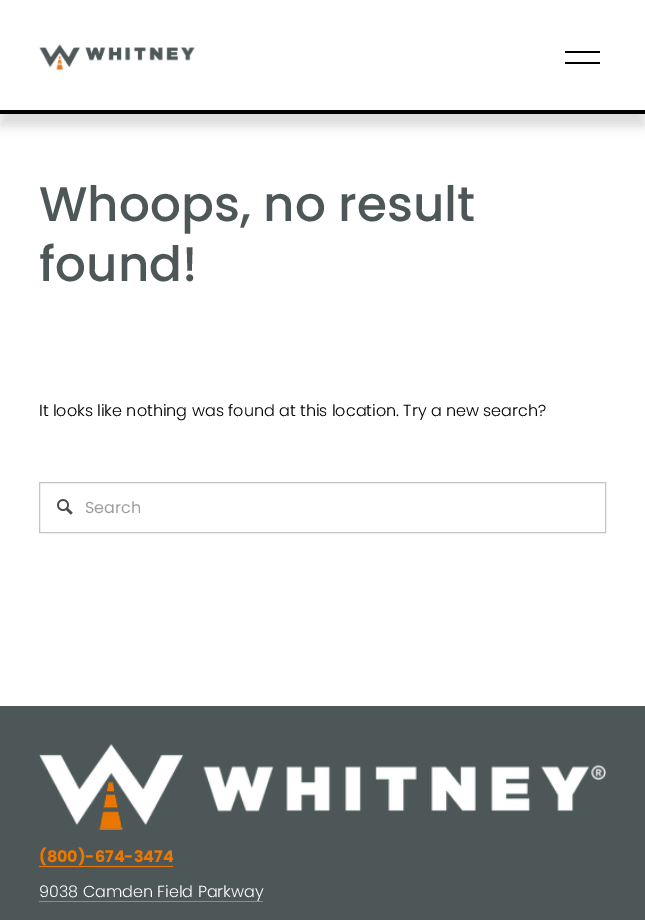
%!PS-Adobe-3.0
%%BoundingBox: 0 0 645 920
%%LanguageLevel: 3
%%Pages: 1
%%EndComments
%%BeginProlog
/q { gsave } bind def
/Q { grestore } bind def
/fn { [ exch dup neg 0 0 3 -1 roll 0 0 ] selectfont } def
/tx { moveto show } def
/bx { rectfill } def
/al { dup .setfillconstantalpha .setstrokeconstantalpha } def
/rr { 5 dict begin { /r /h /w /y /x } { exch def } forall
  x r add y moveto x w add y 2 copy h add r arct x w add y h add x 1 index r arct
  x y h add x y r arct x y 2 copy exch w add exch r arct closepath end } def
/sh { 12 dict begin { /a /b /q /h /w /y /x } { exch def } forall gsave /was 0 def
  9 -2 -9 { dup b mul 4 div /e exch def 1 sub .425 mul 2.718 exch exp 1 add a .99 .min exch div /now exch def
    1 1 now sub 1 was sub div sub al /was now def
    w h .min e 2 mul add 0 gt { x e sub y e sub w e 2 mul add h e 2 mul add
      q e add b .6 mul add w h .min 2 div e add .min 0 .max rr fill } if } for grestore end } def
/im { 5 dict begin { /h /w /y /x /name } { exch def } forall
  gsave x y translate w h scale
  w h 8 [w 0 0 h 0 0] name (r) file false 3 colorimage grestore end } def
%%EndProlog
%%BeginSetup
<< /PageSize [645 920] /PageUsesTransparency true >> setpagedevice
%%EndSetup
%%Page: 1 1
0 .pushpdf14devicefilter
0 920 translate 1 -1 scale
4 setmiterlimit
1 setgray
0 0 645 920 bx
q
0 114 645 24 rectclip
0.851 setgray
0 12 645 114 0 6 1 sh
Q
(image0.raw) 39 44 156 26 im
0 setgray
565 51 35 2 bx
565 62 35 2 bx
0 110 645 4 bx
/Poppins-Medium 48.5 fn
0.302 0.341 0.341 setrgbcolor
(Whoops, no result) 39 221 tx
(found!) 39 281 tx
/Poppins-Light 16 fn
0 setgray
(It looks like nothing was found at this location. Try a new search?) 39 416 tx
(image1.raw) 57 499 16 16 im
0.769 setgray
39.5 482.5 566 50 rectstroke
/Poppins-Regular 16 fn
0.62 setgray
(Search) 85 513 tx
0.302 0.341 0.341 setrgbcolor
0 706 645 214 bx
(image2.raw) 39 743 567 87 im
/Poppins-Bold 16 fn
0.925 0.467 0 setrgbcolor
(\(800\)-674-3474) 39 862 tx
39 866 134 1 bx
39 901 224 1 bx
/Poppins-Light 16 fn
1 setgray
(9038 Camden Field Parkway) 39 897 tx
.poppdf14devicefilter showpage
%%EOF
